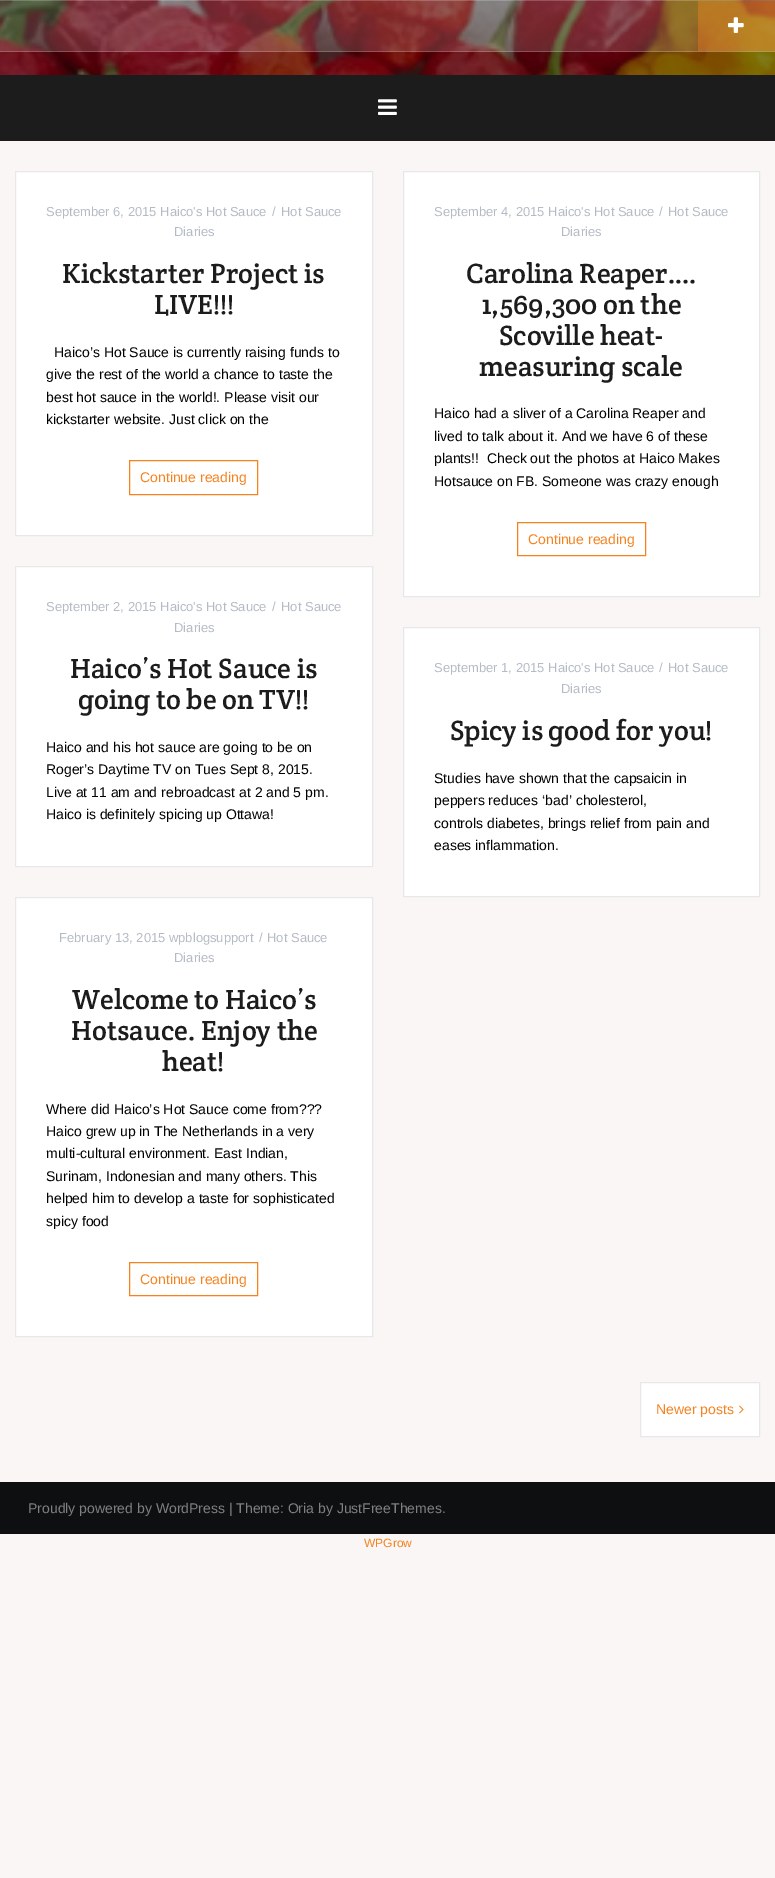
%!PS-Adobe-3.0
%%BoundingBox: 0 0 775 1878
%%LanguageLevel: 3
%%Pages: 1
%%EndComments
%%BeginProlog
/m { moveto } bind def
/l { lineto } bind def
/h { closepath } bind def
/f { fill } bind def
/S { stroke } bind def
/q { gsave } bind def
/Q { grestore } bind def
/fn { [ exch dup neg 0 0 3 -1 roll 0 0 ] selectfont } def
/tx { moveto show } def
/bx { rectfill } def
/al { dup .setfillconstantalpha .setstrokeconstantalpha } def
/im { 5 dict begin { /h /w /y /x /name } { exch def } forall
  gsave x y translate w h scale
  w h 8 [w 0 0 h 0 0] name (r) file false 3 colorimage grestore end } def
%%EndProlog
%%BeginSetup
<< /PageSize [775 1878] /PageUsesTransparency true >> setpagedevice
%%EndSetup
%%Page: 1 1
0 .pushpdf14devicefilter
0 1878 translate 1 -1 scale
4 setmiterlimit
0.976 0.965 0.961 setrgbcolor
0 0 775 1878 bx
(image0.raw) 0 0 775 75 im
0.15 al
1 setgray
0 0 775 52 bx
0.2 al
0 0 775 1 bx
0 51 775 1 bx
0.4 al
0.961 0.51 0.122 setrgbcolor
698 1 77 50 bx
1 al
(image1.raw) 728 17 16 16 im
0.11 setgray
0 75 775 66 bx
(image2.raw) 378 99 19 16 im
1 setgray
15.5 171.5 m 372.5 171.5 l 372.5 535.5 l 15.5 535.5 l h q f Q
0.91 setgray
S
/LiberationSans-Regular 13 fn
0.71 0.733 0.773 setrgbcolor
(September 6, 2015 Haico's Hot Sauce) 46 216 tx
(/) 272 216 tx
(Hot Sauce) 281 216 tx
(Diaries) 174 236 tx
/CreteRound-Regular 28 fn
0.11 setgray
(Kickstarter Project is) 62 283 tx
(LIVE!!!) 154 314 tx
/LiberationSans-Regular 14 fn
0 setgray
(Haico’s Hot Sauce is currently raising funds to) 54 357 tx
(give the rest of the world a chance to taste the) 46 379 tx
(best hot sauce in the world!. Please visit our) 46 402 tx
(kickstarter website. Just click on the) 46 424 tx
0.961 0.51 0.122 setrgbcolor
129.5 460.5 128 34 rectstroke
(Continue reading) 140 482 tx
1 setgray
403.5 171.5 m 759.5 171.5 l 759.5 596.5 l 403.5 596.5 l h q f Q
0.91 setgray
S
/LiberationSans-Regular 13 fn
0.71 0.733 0.773 setrgbcolor
(September 4, 2015 Haico's Hot Sauce) 434 216 tx
(/) 659 216 tx
(Hot Sauce) 668 216 tx
(Diaries) 561 236 tx
/CreteRound-Regular 28 fn
0.11 setgray
(Carolina Reaper….) 466 283 tx
(1,569,300 on the) 482 314 tx
(Scoville heat-) 499 345 tx
(measuring scale) 479 376 tx
/LiberationSans-Regular 14 fn
0 setgray
(Haico had a sliver of a Carolina Reaper and) 434 418 tx
(lived to talk about it. And we have 6 of these) 434 441 tx
(plants!!  Check out the photos at Haico Makes) 434 463 tx
(Hotsauce on FB. Someone was crazy enough) 434 486 tx
0.961 0.51 0.122 setrgbcolor
517.5 522.5 128 33 rectstroke
(Continue reading) 528 544 tx
1 setgray
15.5 566.5 m 372.5 566.5 l 372.5 866.5 l 15.5 866.5 l h q f Q
0.91 setgray
S
/LiberationSans-Regular 13 fn
0.71 0.733 0.773 setrgbcolor
(September 2, 2015 Haico's Hot Sauce) 46 611 tx
(/) 272 611 tx
(Hot Sauce) 281 611 tx
(Diaries) 174 632 tx
/CreteRound-Regular 28 fn
0.11 setgray
(Haico’s Hot Sauce is) 70 678 tx
(going to be on TV!!) 78 709 tx
/LiberationSans-Regular 14 fn
0 setgray
(Haico and his hot sauce are going to be on) 46 752 tx
(Roger’s Daytime TV on Tues Sept 8, 2015.) 46 774 tx
(Live at 11 am and rebroadcast at 2 and 5 pm.) 46 797 tx
(Haico is definitely spicing up Ottawa!) 46 819 tx
1 setgray
403.5 627.5 m 759.5 627.5 l 759.5 896.5 l 403.5 896.5 l h q f Q
0.91 setgray
S
/LiberationSans-Regular 13 fn
0.71 0.733 0.773 setrgbcolor
(September 1, 2015 Haico's Hot Sauce) 434 672 tx
(/) 659 672 tx
(Hot Sauce) 668 672 tx
(Diaries) 561 693 tx
/CreteRound-Regular 28 fn
0.11 setgray
(Spicy is good for you!) 450 740 tx
/LiberationSans-Regular 14 fn
0 setgray
(Studies have shown that the capsaicin in) 434 783 tx
(peppers reduces ‘bad’ cholesterol,) 434 805 tx
(controls diabetes, brings relief from pain and) 434 828 tx
(eases inflammation.) 434 850 tx
1 setgray
15.5 897.5 m 372.5 897.5 l 372.5 1336.5 l 15.5 1336.5 l h q f Q
0.91 setgray
S
/LiberationSans-Regular 13 fn
0.71 0.733 0.773 setrgbcolor
(February 13, 2015 wpblogsupport) 59 942 tx
(/) 259 942 tx
(Hot Sauce) 267 942 tx
(Diaries) 174 962 tx
/CreteRound-Regular 28 fn
0.11 setgray
(Welcome to Haico’s) 72 1009 tx
(Hotsauce. Enjoy the) 71 1040 tx
(heat!) 162 1071 tx
/LiberationSans-Regular 14 fn
0 setgray
(Where did Haico’s Hot Sauce come from???) 46 1114 tx
(Haico grew up in The Netherlands in a very) 46 1136 tx
(multi-cultural environment. East Indian,) 46 1158 tx
(Surinam, Indonesian and many others. This) 46 1181 tx
(helped him to develop a taste for sophisticated) 46 1203 tx
(spicy food) 46 1226 tx
0.961 0.51 0.122 setrgbcolor
129.5 1262.5 128 33 rectstroke
(Continue reading) 140 1284 tx
1 setgray
640.5 1382.5 m 759.5 1382.5 l 759.5 1436.5 l 640.5 1436.5 l h q f Q
0.91 setgray
S
0.961 0.51 0.122 setrgbcolor
(Newer posts) 656 1414 tx
(image3.raw) 739 1405 5 9 im
0.051 0.059 0.063 setrgbcolor
0 1482 775 52 bx
0.502 setgray
(Proudly powered by WordPress | Theme: Oria by JustFreeThemes.) 28 1513 tx
/LiberationSans-Regular 12 fn
0.961 0.51 0.122 setrgbcolor
(WPGrow) 364 1547 tx
.poppdf14devicefilter showpage
%%EOF
